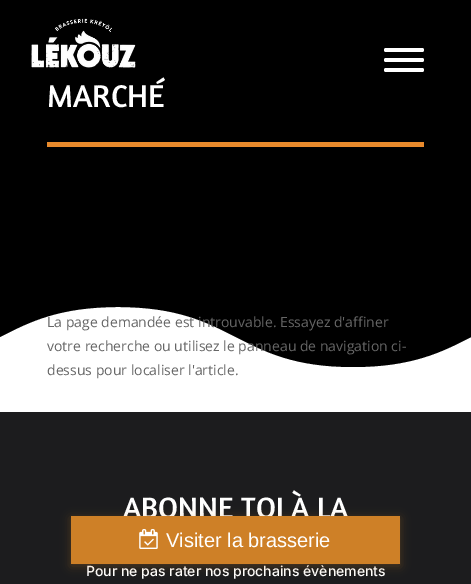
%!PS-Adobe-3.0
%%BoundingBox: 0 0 471 584
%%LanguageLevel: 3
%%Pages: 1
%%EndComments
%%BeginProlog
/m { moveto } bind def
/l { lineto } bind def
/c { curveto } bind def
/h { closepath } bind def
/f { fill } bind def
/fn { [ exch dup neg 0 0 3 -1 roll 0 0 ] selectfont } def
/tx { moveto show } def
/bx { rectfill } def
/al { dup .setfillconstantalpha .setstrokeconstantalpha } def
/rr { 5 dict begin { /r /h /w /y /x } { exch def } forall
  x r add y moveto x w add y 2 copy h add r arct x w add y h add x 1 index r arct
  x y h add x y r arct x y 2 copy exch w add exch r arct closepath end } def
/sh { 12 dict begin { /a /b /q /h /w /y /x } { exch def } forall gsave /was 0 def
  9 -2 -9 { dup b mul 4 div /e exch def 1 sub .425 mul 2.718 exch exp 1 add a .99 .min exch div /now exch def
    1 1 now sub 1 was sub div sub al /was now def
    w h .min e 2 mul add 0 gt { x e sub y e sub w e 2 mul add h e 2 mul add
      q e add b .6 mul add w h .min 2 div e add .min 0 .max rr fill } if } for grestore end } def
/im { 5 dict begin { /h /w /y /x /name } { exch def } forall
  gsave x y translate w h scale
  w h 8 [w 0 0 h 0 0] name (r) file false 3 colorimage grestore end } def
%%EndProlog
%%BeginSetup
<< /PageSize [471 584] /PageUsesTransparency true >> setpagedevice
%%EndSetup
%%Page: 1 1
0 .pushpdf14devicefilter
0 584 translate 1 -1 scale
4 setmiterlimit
1 setgray
0 0 471 584 bx
0 setgray
0 0 471 287 bx
(image0.raw) 31 18 105 50 im
1 setgray
384 48 40 4 2 rr f
384 58 40 4 2 rr f
384 68 40 4 2 rr f
0.91 0.541 0.173 setrgbcolor
47 142 377 5 bx
/Amaranth-Regular 32 fn
1 setgray
(MARCHÉ) 47 107 tx
0 setgray
118 307 m 59 307 29 322 0 337 c 0 287 l 471 287 l 471 337 l 442 352 412 367 353 367 c 236 367 236 307 118 307 c h f
/OpenSans-Regular 14 fn
0.4 setgray
(La page demandée est introuvable. Essayez d'affiner) 47 327 tx
(votre recherche ou utilisez le panneau de navigation ci-) 47 351 tx
(dessus pour localiser l'article.) 47 375 tx
0.11 0.11 0.118 setrgbcolor
0 412 471 172 bx
/Amaranth-Regular 30 fn
1 setgray
(ABONNE TOI À LA) 123 518 tx
/Inter-Medium 14 fn
(Pour ne pas rater nos prochains évènements) 86 576 tx
0.808 0.502 0.153 setrgbcolor
71 518 329 48 0 5 0.3 sh
71 516 329 48 bx
(image1.raw) 139 529 19 20 im
/LiberationSans-Regular 20 fn
1 setgray
(Visiter la brasserie) 166 547 tx
.poppdf14devicefilter showpage
%%EOF
